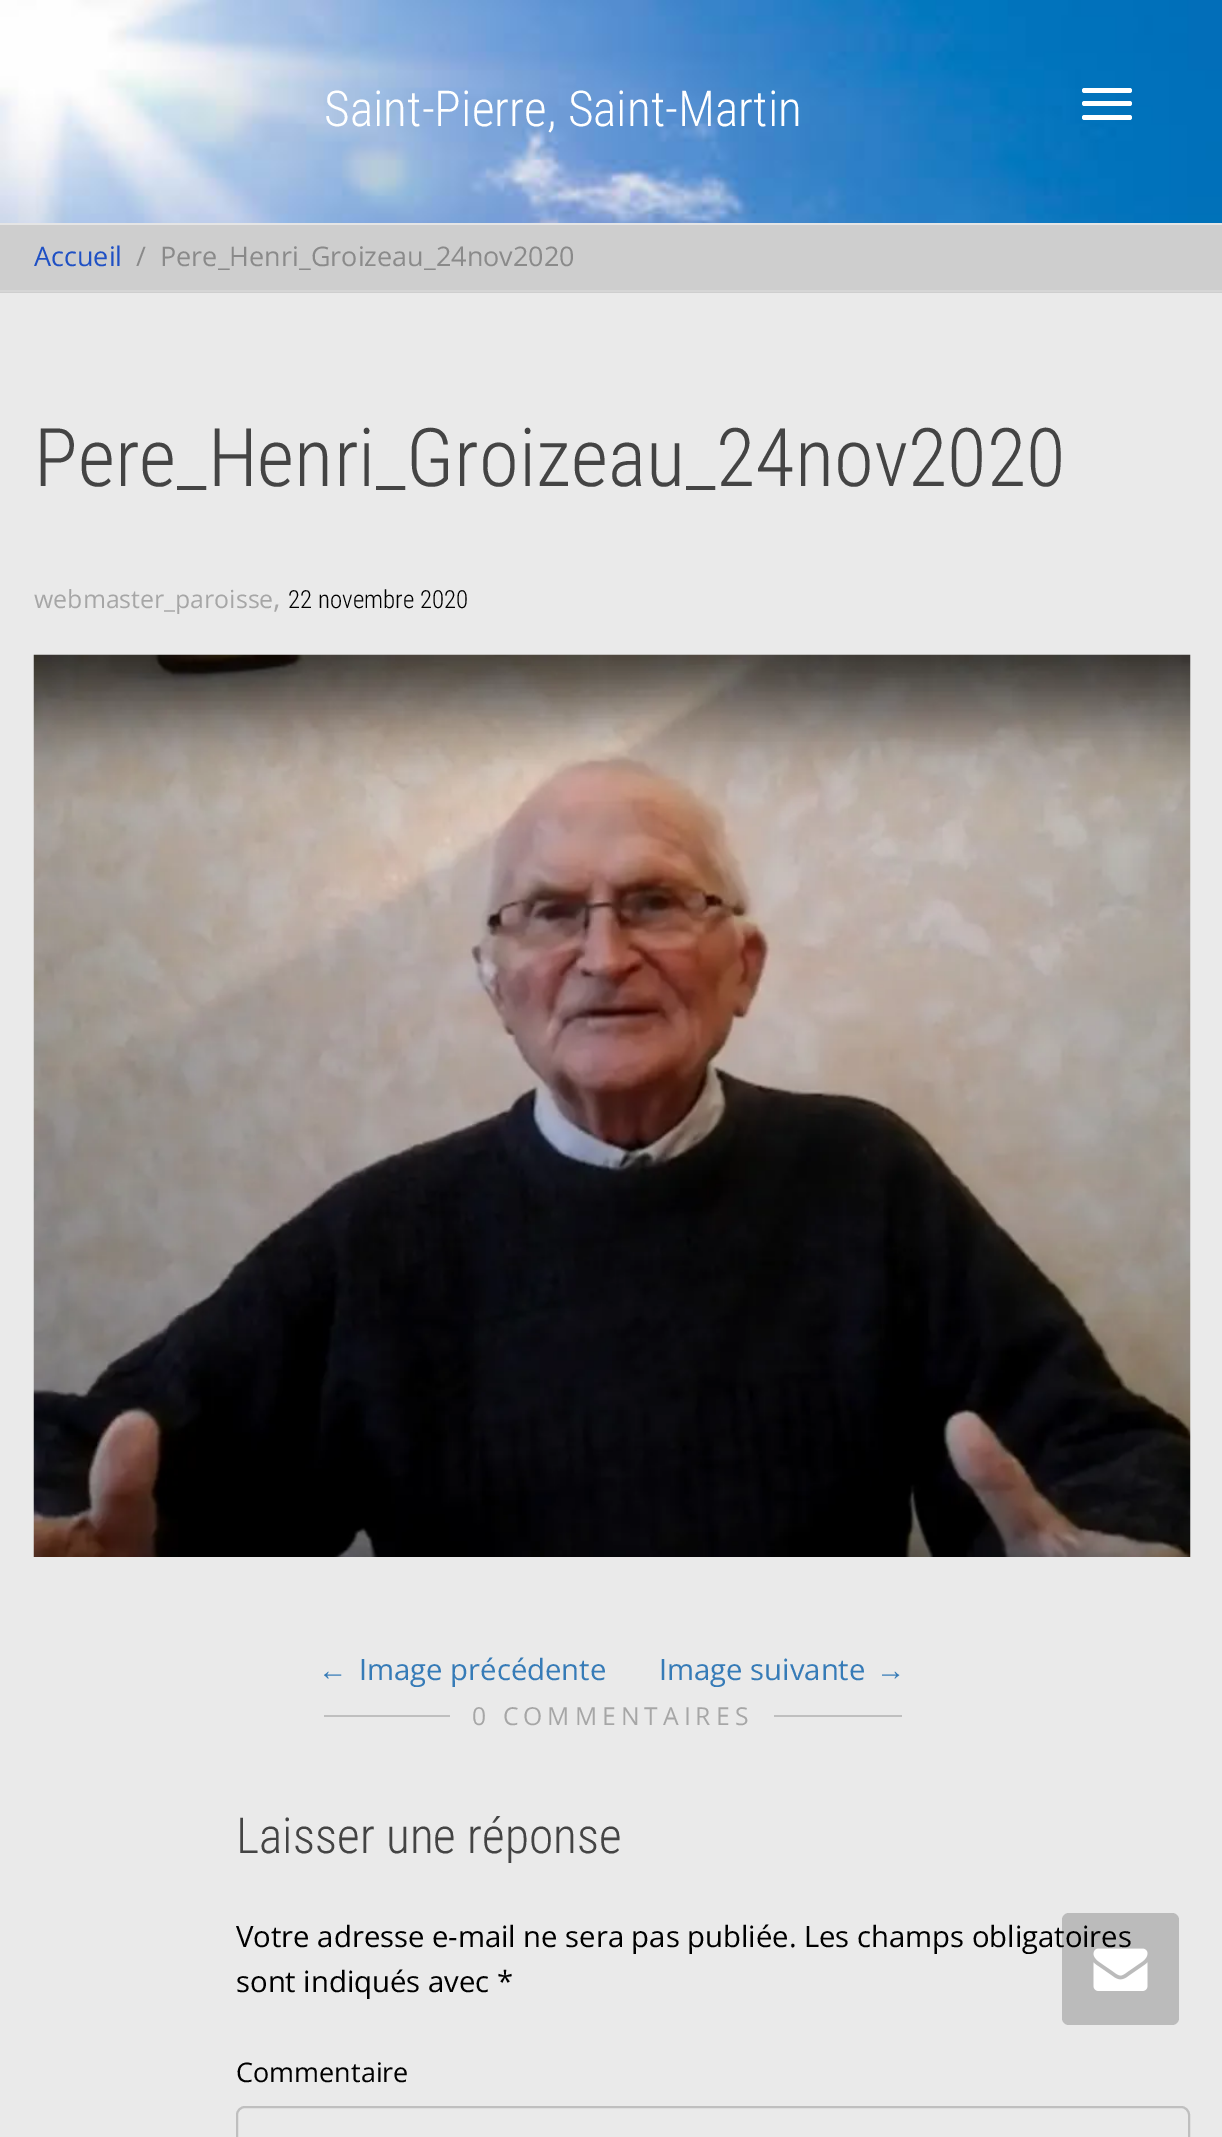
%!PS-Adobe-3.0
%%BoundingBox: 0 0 1222 2137
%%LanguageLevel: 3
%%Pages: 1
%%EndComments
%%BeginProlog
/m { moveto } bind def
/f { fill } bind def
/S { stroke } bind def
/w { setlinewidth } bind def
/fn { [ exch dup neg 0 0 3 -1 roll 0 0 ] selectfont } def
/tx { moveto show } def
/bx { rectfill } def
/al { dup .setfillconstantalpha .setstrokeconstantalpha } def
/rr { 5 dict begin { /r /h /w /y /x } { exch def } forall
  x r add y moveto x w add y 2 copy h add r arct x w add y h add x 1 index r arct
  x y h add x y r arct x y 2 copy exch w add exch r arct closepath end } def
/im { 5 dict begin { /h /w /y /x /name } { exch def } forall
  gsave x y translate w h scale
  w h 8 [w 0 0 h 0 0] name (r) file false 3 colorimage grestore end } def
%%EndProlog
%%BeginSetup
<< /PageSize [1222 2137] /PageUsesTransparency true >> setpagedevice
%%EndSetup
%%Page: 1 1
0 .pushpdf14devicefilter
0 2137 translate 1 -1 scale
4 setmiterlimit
0.918 setgray
0 0 1222 2137 bx
(image0.raw) 0 0 1222 223 im
0.898 setgray
0 223 1222 2 bx
/RobotoCondensed-Light 49.5 fn
1 setgray
(Saint-Pierre, Saint-Martin) 324 126 tx
1082 88 50 5 2.5 rr f
1082 101 50 5 2.5 rr f
1082 115 50 5 2.5 rr f
0.808 setgray
0 225 1222 68 bx
0.839 setgray
0 290 1222 2 bx
/OpenSans-Regular 27 fn
0.122 0.314 0.769 setrgbcolor
(Accueil) 34 266 tx
0.541 setgray
(/) 136 266 tx
(Pere_Henri_Groizeau_24nov2020) 160 266 tx
/RobotoCondensed-Light 81 fn
0.267 setgray
(Pere_Henri_Groizeau_24nov2020) 34 486 tx
/OpenSans-Regular 24.9 fn
0.651 setgray
(webmaster_paroisse) 34 608 tx
/OpenSans-Regular 29.25 fn
(,) 273 608 tx
/RobotoCondensed-Light 24.9 fn
0 setgray
(22 novembre 2020) 288 608 tx
(image1.raw) 33 654 1158 903 im
/LiberationSerif-Regular 29.25 fn
0.212 0.482 0.718 setrgbcolor
(←) 318 1680 tx
/OpenSans-Regular 29.25 fn
(Image précédente) 359 1680 tx
(Image suivante) 659 1680 tx
/LiberationSerif-Regular 29.25 fn
(→) 876 1680 tx
0.749 setgray
324 1715 578 2 bx
0.918 setgray
450 1694 324 43 5 rr f
/OpenSans-Regular 24.75 fn
0.651 setgray
472 1725 m 5 0 (0 COMMENTAIRES) ashow
/RobotoCondensed-Light 49.5 fn
0.267 setgray
(Laisser une réponse) 236 1853 tx
/OpenSans-Regular 29.25 fn
0 setgray
(Votre adresse e-mail ne sera pas publiée. Les champs obligatoires) 236 1947 tx
(sont indiqués avec *) 236 1992 tx
/OpenSans-Regular 27 fn
(Commentaire) 236 2082 tx
0.749 setgray
2 w
237 2107 952 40 8 rr S
0.2 al
0 setgray
1062 1913 117 112 7 rr f
1 al
(image2.raw) 1093 1948 55 43 im
.poppdf14devicefilter showpage
%%EOF
